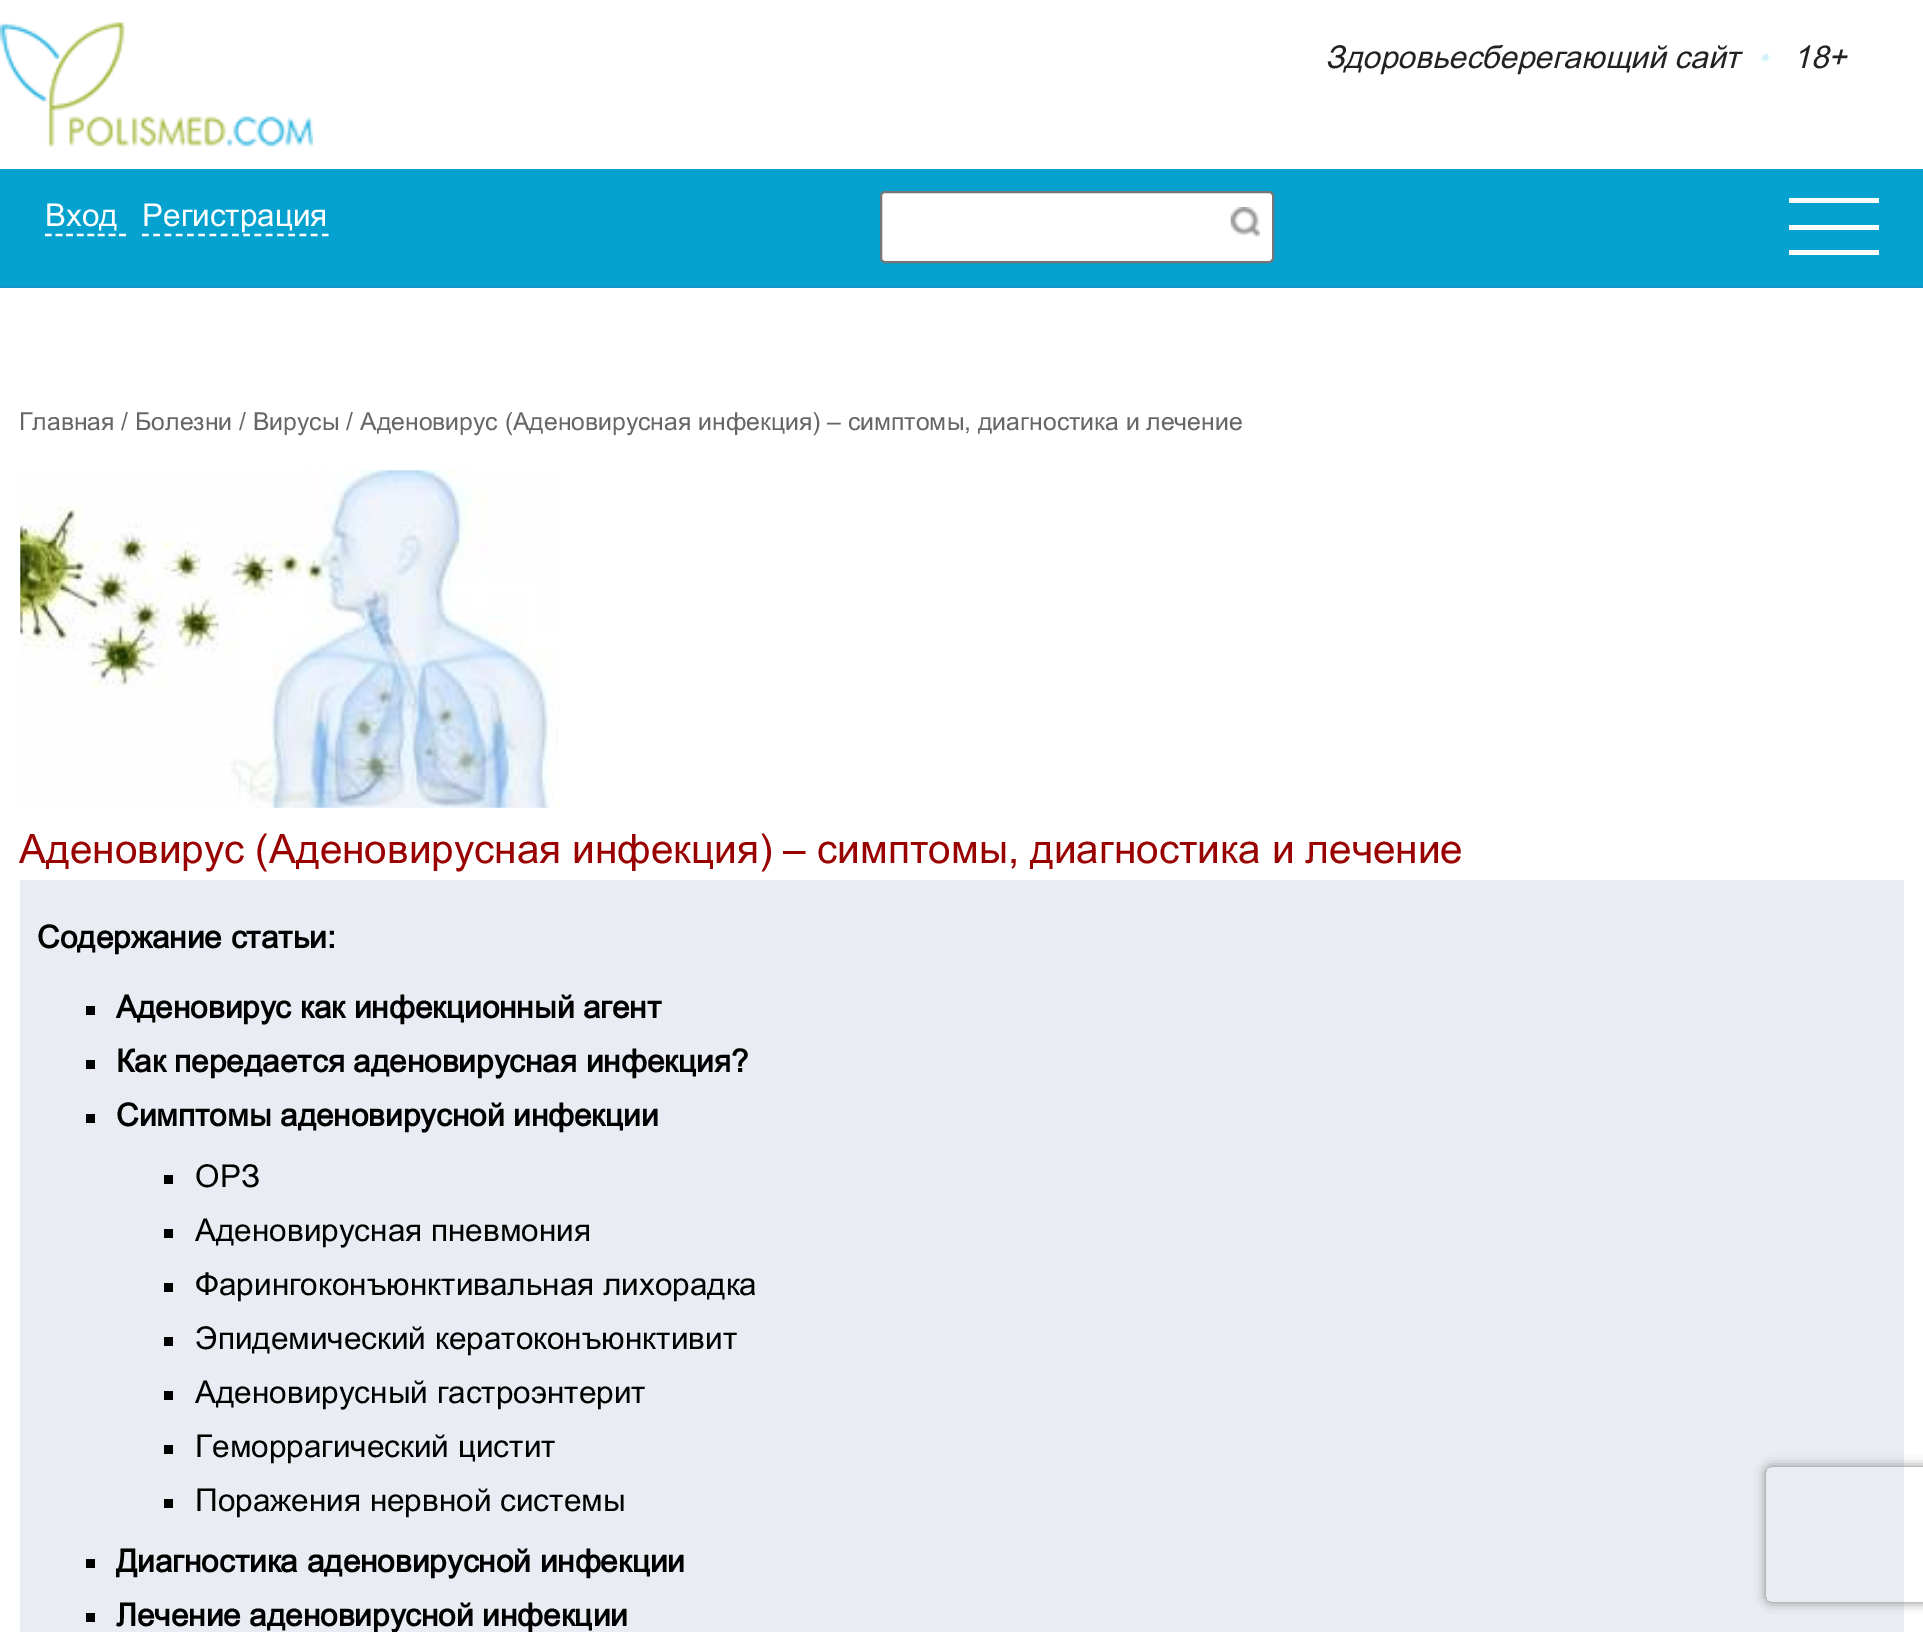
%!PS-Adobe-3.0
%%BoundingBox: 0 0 1923 1632
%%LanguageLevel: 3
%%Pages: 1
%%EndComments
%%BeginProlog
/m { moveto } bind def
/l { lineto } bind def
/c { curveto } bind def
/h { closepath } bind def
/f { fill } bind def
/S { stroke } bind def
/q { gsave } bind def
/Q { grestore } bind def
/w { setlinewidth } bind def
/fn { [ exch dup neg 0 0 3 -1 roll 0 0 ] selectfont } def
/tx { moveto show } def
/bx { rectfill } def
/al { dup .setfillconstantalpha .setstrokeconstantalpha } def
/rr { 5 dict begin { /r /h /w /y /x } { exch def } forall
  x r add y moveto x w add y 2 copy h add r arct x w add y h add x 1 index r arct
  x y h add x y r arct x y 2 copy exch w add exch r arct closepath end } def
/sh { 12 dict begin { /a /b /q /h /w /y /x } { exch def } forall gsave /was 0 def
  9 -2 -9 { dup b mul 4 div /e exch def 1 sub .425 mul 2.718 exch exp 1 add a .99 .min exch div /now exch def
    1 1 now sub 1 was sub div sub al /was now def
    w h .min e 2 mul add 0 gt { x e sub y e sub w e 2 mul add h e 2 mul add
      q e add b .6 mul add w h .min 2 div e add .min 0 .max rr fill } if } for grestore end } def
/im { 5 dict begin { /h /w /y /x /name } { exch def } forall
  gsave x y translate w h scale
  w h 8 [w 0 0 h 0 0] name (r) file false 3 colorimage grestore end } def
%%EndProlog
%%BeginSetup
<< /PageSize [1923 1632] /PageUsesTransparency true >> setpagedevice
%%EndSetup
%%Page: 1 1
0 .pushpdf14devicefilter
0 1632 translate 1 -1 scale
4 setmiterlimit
1 setgray
0 0 1923 1632 bx
(image0.raw) 0 22 313 125 im
0.02 0.631 0.812 setrgbcolor
0 169 1923 117 bx
0.063 0.584 0.769 setrgbcolor
0 286 1923 2 bx
/Arial-Italic 31.5 fn
0.133 setgray
(Здоровьесберегающий сайт) 1325 68 tx
(image1.raw) 1761 54 10 7 im
(18+) 1793 68 tx
/Arial-Regular 31.5 fn
1 setgray
(Вход) 45 226 tx
2.2 w
[6.75 3.85] 0 setdash
45 235 m 126 235 l S
(Регистрация) 142 226 tx
[6.75 4.5] 0 setdash
142 235 m 328.5 235 l S
881 192 392 70 4 rr q f Q
0.463 setgray
2 w
[] 0 setdash
S
(image2.raw) 1230 207 30 30 im
1 setgray
1789 198 90 5 bx
1789 225 90 5 bx
1789 250 90 5 bx
/Arial-Regular 24.75 fn
0.4 setgray
(Главная / Болезни / Вирусы / Аденовирус \(Аденовирусная инфекция\) – симптомы, диагностика и лечение) 19 430 tx
(image3.raw) 20 470 540 338 im
/Arial-Regular 40.5 fn
0.6 0 0 setrgbcolor
(Аденовирус \(Аденовирусная инфекция\) – симптомы, диагностика и лечение) 19 863 tx
0.914 0.929 0.953 setrgbcolor
20 880 1884 752 bx
/Arial-Bold 31.5 fn
0 setgray
(Содержание статьи:) 37 948 tx
86 1006 9 9 bx
(Аденовирус как инфекционный агент) 116 1018 tx
86 1060 9 9 bx
(Как передается аденовирусная инфекция?) 116 1072 tx
86 1114 9 9 bx
(Симптомы аденовирусной инфекции) 116 1126 tx
164 1175 9 9 bx
/Arial-Regular 31.5 fn
(ОРЗ) 195 1187 tx
164 1229 9 9 bx
(Аденовирусная пневмония) 195 1241 tx
164 1283 9 9 bx
(Фарингоконъюнктивальная лихорадка) 195 1295 tx
164 1337 9 9 bx
(Эпидемический кератоконъюнктивит) 195 1349 tx
164 1391 9 9 bx
(Аденовирусный гастроэнтерит) 195 1403 tx
164 1445 9 9 bx
(Геморрагический цистит) 195 1457 tx
164 1499 9 9 bx
(Поражения нервной системы) 195 1511 tx
86 1559 9 9 bx
/Arial-Bold 31.5 fn
(Диагностика аденовирусной инфекции) 116 1572 tx
86 1613 9 9 bx
(Лечение аденовирусной инфекции) 116 1626 tx
q
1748 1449 m 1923 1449 l 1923 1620 l 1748 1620 l h 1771 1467 m 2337 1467 l 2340 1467 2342 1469 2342 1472 c 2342 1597 l 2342 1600 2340 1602 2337 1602 c 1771 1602 l 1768 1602 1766 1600 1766 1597 c 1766 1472 l 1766 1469 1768 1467 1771 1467 c h eoclip newpath
0.502 setgray
1766 1467 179 135 5 5.5 1 sh
Q
.poppdf14devicefilter showpage
%%EOF
